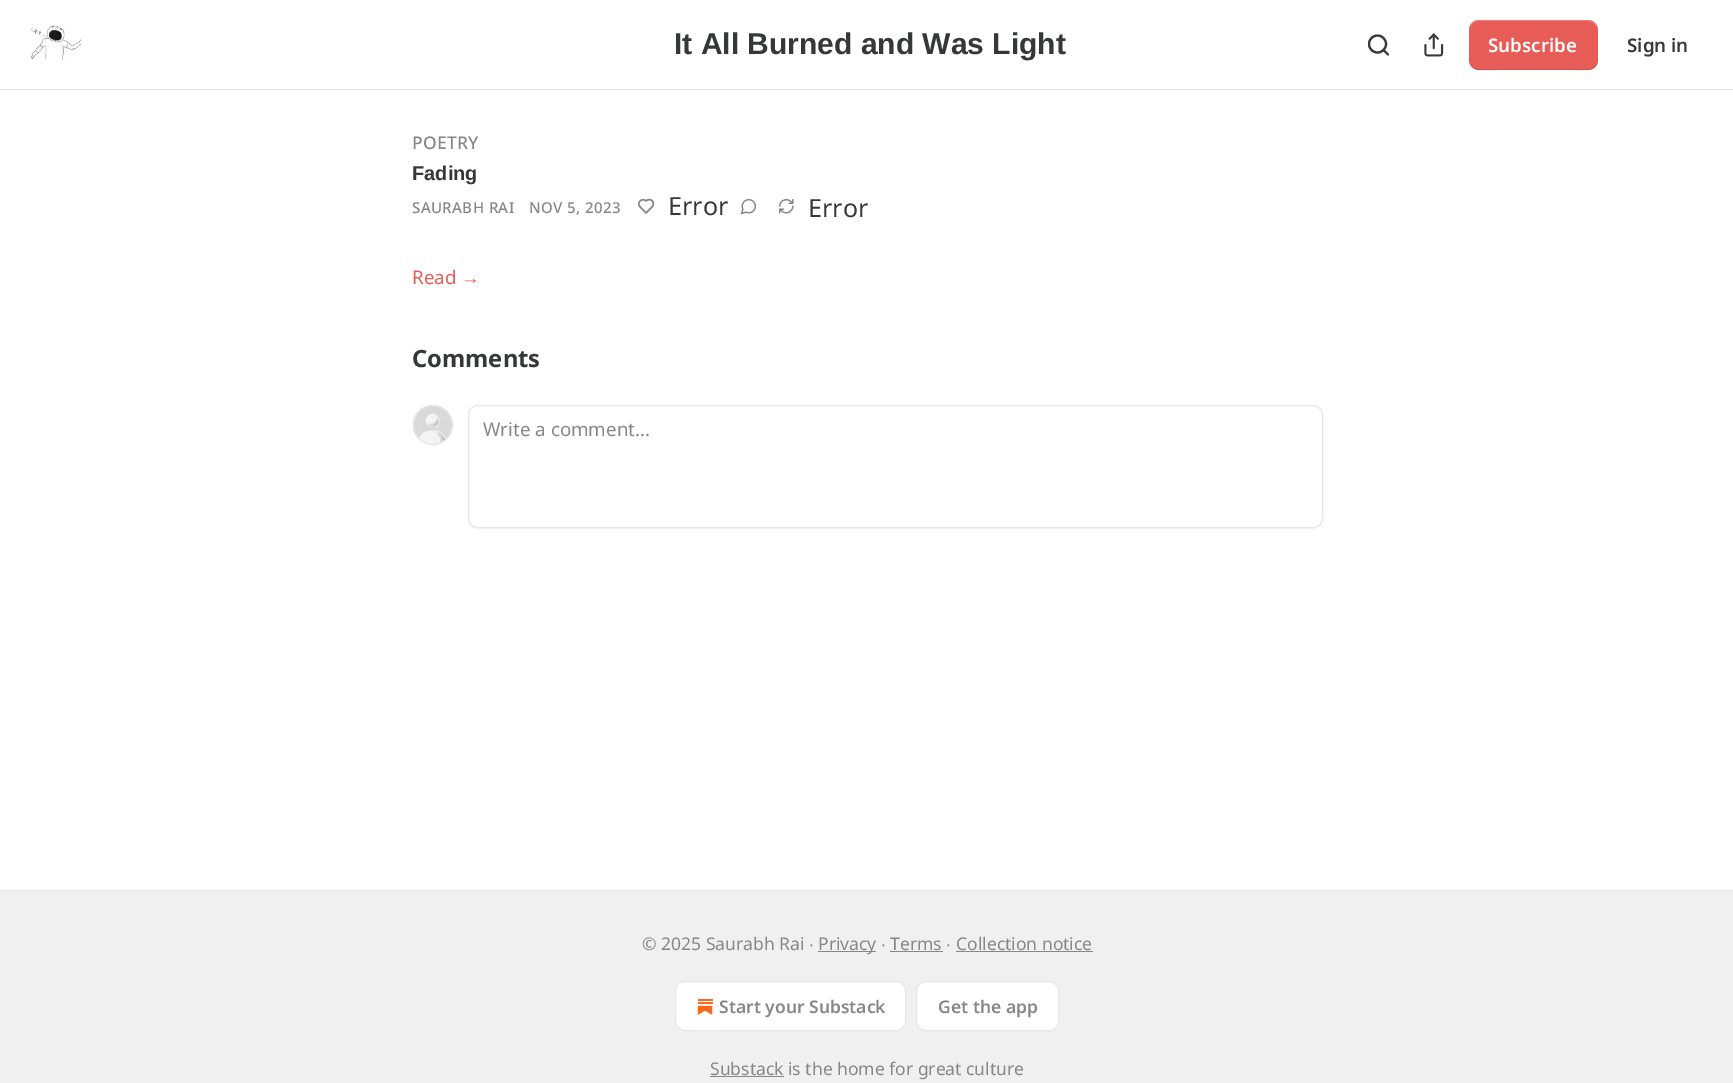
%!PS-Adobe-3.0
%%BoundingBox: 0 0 1733 1083
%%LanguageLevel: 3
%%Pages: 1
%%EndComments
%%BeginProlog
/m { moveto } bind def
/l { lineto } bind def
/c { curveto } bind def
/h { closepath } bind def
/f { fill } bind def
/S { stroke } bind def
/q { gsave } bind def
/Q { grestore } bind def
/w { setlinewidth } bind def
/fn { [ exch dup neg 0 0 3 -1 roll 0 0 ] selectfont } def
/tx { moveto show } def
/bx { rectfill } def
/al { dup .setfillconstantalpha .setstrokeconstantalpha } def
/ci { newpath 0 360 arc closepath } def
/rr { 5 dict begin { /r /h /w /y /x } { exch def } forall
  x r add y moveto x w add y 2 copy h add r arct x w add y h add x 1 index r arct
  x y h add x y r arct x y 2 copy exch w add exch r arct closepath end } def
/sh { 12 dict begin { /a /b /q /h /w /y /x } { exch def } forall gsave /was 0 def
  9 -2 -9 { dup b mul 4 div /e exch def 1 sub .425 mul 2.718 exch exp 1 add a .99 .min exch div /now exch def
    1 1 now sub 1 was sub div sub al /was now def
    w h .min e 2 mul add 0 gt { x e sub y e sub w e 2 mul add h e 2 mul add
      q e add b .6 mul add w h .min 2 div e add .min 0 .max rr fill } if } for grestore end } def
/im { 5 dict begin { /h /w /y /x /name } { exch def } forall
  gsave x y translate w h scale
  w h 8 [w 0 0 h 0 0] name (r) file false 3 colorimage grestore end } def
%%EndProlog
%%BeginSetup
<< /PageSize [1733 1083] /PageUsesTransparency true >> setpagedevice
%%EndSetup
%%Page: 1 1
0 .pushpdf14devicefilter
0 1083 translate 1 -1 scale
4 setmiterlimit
1 setgray
0 0 1733 1083 bx
0.902 setgray
0 89 1733 1 bx
(image0.raw) 31 25 51 35 im
/LiberationSans-Bold 30 fn
0.212 0.216 0.216 setrgbcolor
(It All Burned and Was Light) 674 54 tx
2.1 w
1377.5 44 8.5 ci S
1 setlinecap
1 setlinejoin
1388 54.5 m 1383.5 50 l S
(image1.raw) 1424 33 20 24 im
0.91 0.361 0.341 setrgbcolor
1469 20 129 50 10 rr f
0.1 al
0 setgray
1469 59 m 1469 74 1487 70 1497 70 c 1570 70 l 1580 70 1598 74 1598 59 c 1598 64 1593 69 1588 69 c 1479 69 l 1473 69 1469 64 1469 59 c h f
0.2 al
1 setgray
1479 21 m 1588 21 l 1593 21 1598 26 1598 31 c 1598 16 1580 20 1570 20 c 1497 20 l 1487 20 1469 16 1469 31 c 1469 26 1473 21 1479 21 c h f
/NotoSans-SemiBold 18.75 fn
1 al
(Subscribe) 1488 52 tx
0.212 0.216 0.216 setrgbcolor
(Sign in) 1627 52 tx
/NotoSans-Medium 17.5 fn
0.525 0.529 0.529 setrgbcolor
412 149 m 0.25 0 (POETRY) ashow
/LiberationSans-Bold 20 fn
0.212 0.216 0.216 setrgbcolor
(Fading) 412 180 tx
/NotoSans-Medium 15 fn
0.525 0.529 0.529 setrgbcolor
412 213 m 0.4 0 (SAURABH RAI) ashow
529 213 m 0.4 0 (NOV 5, 2023) ashow
1.5 w
651.5 207.5 m 656.5 202.5 650.5 197 646 201 c 643.5 198 637.5 200.5 639 205 c 640 207.5 644.5 211 646 213 c h S
/NotoSans-Regular 25 fn
0.212 0.216 0.216 setrgbcolor
(Error) 668 215 tx
(image2.raw) 740 198 16 17 im
(image3.raw) 778 199 16 15 im
(Error) 808 217 tx
/NotoSans-Regular 18.75 fn
0.91 0.361 0.341 setrgbcolor
(Read) 412 284 tx
/LiberationSans-Regular 18.75 fn
(→) 461 284 tx
/NotoSans-Bold 23.75 fn
0.212 0.216 0.216 setrgbcolor
(Comments) 412 367 tx
0.902 setgray
1 w
0 setlinecap
0 setlinejoin
433 425 19.5 ci S
(image4.raw) 413 405 39 40 im
433 425 19.5 ci S
0 setgray
468 406 855 123 10 1 0.05 sh
1 setgray
468.5 405.5 854 122 9.5 rr q f Q
0.902 setgray
S
/NotoSans-Regular 18.75 fn
0.525 0.529 0.529 setrgbcolor
(Write a comment...) 483 436 tx
0.941 setgray
0 891 1733 192 bx
0.902 setgray
0 890 1733 1 bx
/NotoSans-Regular 17.5 fn
0.525 0.529 0.529 setrgbcolor
(© 2025 Saurabh Rai) 642 950 tx
/LiberationSans-Regular 17.5 fn
(∙) 809 950 tx
818 951 58 1 bx
/NotoSans-Regular 17.5 fn
(Privacy) 818 950 tx
/LiberationSans-Regular 17.5 fn
(∙) 881 950 tx
/NotoSans-Regular 17.5 fn
(Terms) 890 950 tx
890 951 53 1 bx
/LiberationSans-Regular 17.5 fn
(∙) 946 950 tx
/NotoSans-Regular 17.5 fn
(Collection notice) 956 950 tx
956 951 137 1 bx
1 setgray
675.5 981.5 230 49 9.5 rr q f Q
0.902 setgray
S
(image5.raw) 697 999 16 16 im
/NotoSans-SemiBold 17.5 fn
0.525 0.529 0.529 setrgbcolor
(Start your Substack) 719 1013 tx
1 setgray
916.5 981.5 142 49 9.5 rr q f Q
0.902 setgray
S
0.525 0.529 0.529 setrgbcolor
(Get the app) 938 1013 tx
710 1076 74 1 bx
/NotoSans-Regular 17.5 fn
(Substack is the home for great culture) 710 1075 tx
.poppdf14devicefilter showpage
%%EOF
